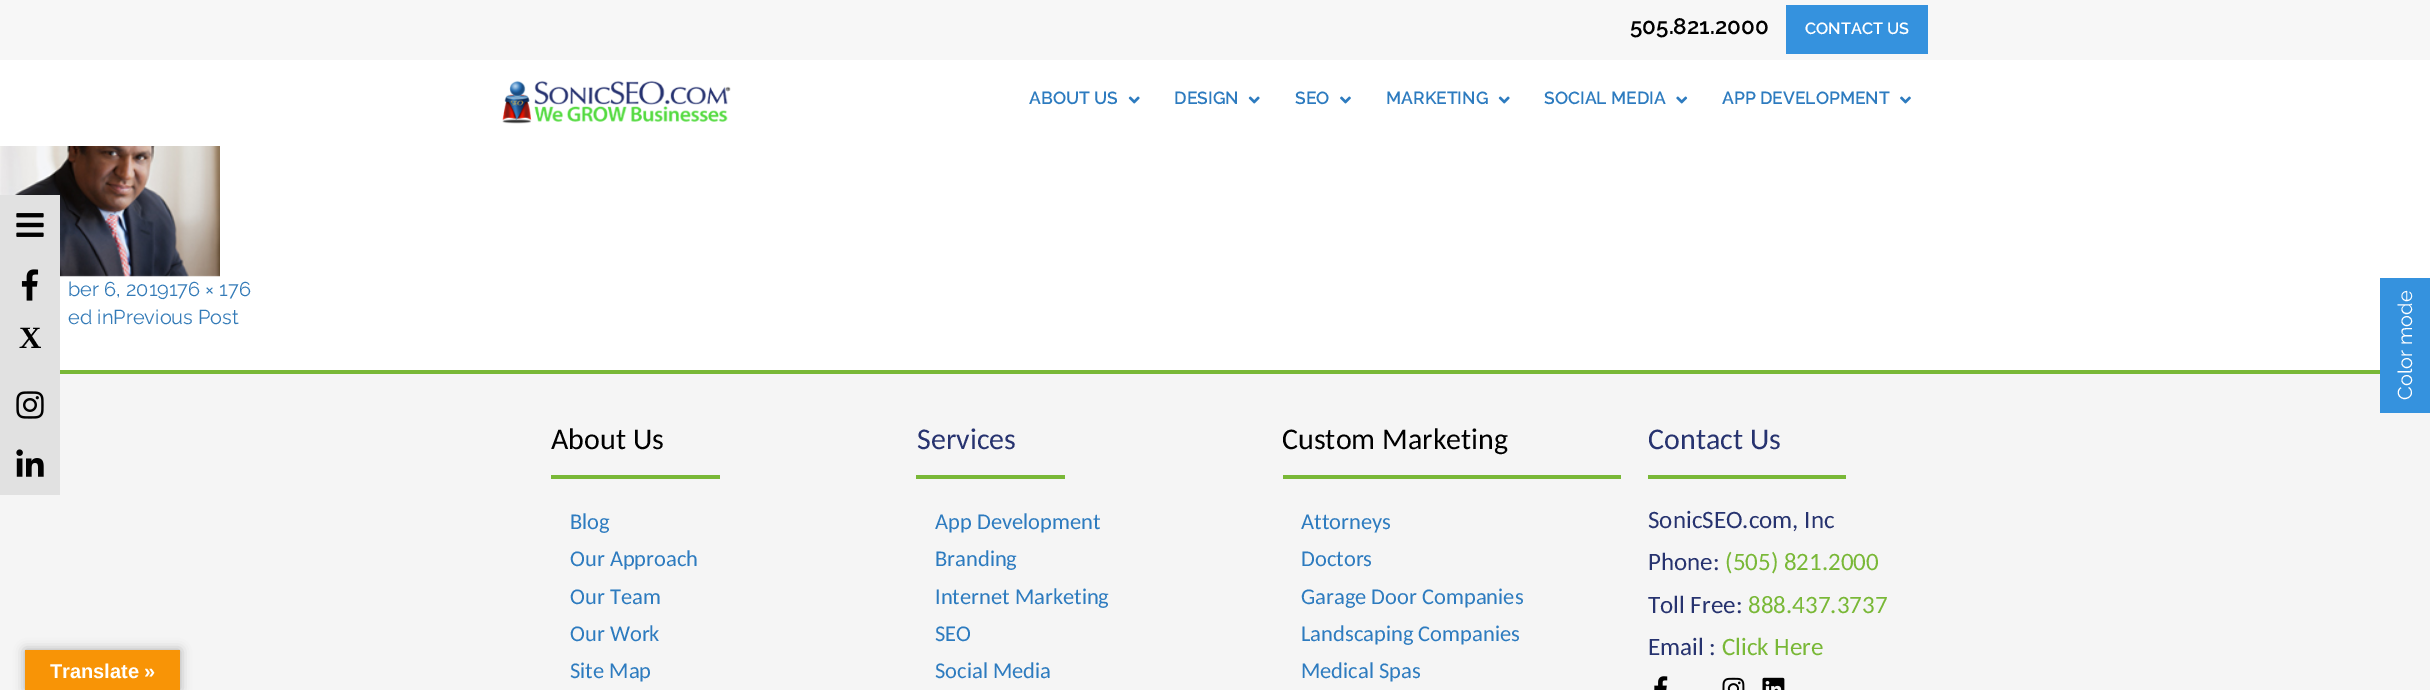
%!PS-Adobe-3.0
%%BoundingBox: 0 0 2430 690
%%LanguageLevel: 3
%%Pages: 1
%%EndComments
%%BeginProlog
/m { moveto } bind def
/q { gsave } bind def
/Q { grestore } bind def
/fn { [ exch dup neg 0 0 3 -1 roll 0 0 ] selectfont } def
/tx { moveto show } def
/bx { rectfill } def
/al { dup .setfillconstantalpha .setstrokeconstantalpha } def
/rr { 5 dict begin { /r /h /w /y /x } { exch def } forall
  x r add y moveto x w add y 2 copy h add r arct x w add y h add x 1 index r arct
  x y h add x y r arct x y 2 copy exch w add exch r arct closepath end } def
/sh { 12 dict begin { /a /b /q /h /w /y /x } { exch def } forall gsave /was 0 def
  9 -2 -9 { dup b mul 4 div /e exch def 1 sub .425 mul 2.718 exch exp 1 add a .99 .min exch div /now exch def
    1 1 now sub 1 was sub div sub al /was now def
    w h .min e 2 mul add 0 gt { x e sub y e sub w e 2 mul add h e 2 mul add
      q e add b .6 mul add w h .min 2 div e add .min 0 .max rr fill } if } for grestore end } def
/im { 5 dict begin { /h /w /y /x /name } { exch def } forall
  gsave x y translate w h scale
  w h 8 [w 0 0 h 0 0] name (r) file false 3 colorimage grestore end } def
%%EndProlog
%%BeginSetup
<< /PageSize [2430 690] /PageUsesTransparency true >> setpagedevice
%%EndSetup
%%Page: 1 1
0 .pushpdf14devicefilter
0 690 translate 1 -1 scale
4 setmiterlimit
1 setgray
0 0 2430 690 bx
0.969 setgray
0 0 2430 60 bx
/Raleway-SemiBold 22.5 fn
0 setgray
(505.821.2000) 1630 34 tx
0.208 0.573 0.871 setrgbcolor
1786 5 142 49 bx
/Raleway-SemiBold 16.25 fn
1 setgray
(CONTACT US) 1805 34 tx
(image0.raw) 502 80 229 44 im
/Raleway-SemiBold 17.5 fn
0.176 0.482 0.749 setrgbcolor
(ABOUT US) 1029 104 tx
(image1.raw) 1128 96 12 8 im
(DESIGN) 1174 104 tx
(image1.raw) 1248 96 12 8 im
(SEO) 1295 104 tx
(image2.raw) 1340 96 11 8 im
(MARKETING) 1386 104 tx
(image1.raw) 1498 96 12 8 im
(SOCIAL MEDIA) 1544 104 tx
(image3.raw) 1676 96 12 8 im
(APP DEVELOPMENT) 1722 104 tx
(image2.raw) 1900 96 11 8 im
(image4.raw) 0 146 220 131 im
/Raleway-Regular 20 fn
0.2 0.478 0.718 setrgbcolor
(ber 6, 2019176 × 176) 68 296 tx
(ed inPrevious Post) 68 324 tx
0.961 setgray
0 374 2430 316 bx
0.882 setgray
0 195 60 300 bx
(image5.raw) 16 213 28 24 im
(image6.raw) 21 269 18 32 im
/LiberationSerif-Bold 31 fn
0 setgray
(X) 19 348 tx
(image7.raw) 16 391 28 28 im
(image8.raw) 16 449 28 28 im
0.475 0.722 0.216 setrgbcolor
60 370 2320 4 bx
/Carlito-Regular 30 fn
0 setgray
(About Us) 551 449 tx
0.475 0.722 0.216 setrgbcolor
551 475 169 4 bx
/Carlito-Regular 22.5 fn
0.176 0.482 0.749 setrgbcolor
(Blog) 570 529 tx
(Our Approach) 570 566 tx
(Our Team) 570 604 tx
(Our Work) 570 641 tx
(Site Map) 570 678 tx
/Carlito-Regular 30 fn
0.153 0.2 0.435 setrgbcolor
(Services) 917 449 tx
0.475 0.722 0.216 setrgbcolor
916 475 149 4 bx
/Carlito-Regular 22.5 fn
0.176 0.482 0.749 setrgbcolor
(App Development) 935 529 tx
(Branding) 935 566 tx
(Internet Marketing) 935 604 tx
(SEO) 935 641 tx
(Social Media) 935 678 tx
/Carlito-Regular 30 fn
0 setgray
(Custom Marketing) 1282 449 tx
0.475 0.722 0.216 setrgbcolor
1283 475 338 4 bx
/Carlito-Regular 22.5 fn
0.176 0.482 0.749 setrgbcolor
(Attorneys) 1301 529 tx
(Doctors) 1301 566 tx
(Garage Door Companies) 1301 604 tx
(Landscaping Companies) 1301 641 tx
(Medical Spas) 1301 678 tx
/Carlito-Regular 30 fn
0.153 0.2 0.435 setrgbcolor
(Contact Us) 1648 449 tx
0.475 0.722 0.216 setrgbcolor
1648 475 198 4 bx
/Carlito-Regular 25 fn
0.153 0.2 0.435 setrgbcolor
(SonicSEO.com, Inc) 1648 528 tx
(Phone:) 1648 570 tx
0.475 0.722 0.216 setrgbcolor
(\(505\) 821.2000) 1725 570 tx
0.153 0.2 0.435 setrgbcolor
(Toll Free:) 1648 613 tx
0.475 0.722 0.216 setrgbcolor
(888.437.3737) 1748 613 tx
0.153 0.2 0.435 setrgbcolor
(Email :) 1648 655 tx
0.475 0.722 0.216 setrgbcolor
(Click Here) 1722 655 tx
(image9.raw) 1654 676 14 14 im
(image10.raw) 1722 677 23 13 im
(image11.raw) 1762 677 23 13 im
0.208 0.573 0.871 setrgbcolor
2380 278 50 135 bx
/Raleway-Regular 20 fn
1 setgray
q 2412 400 translate -90 rotate 0 0 m (Color mode) show Q
0 setgray
25 650 155 40 0 5.5 0.3 sh
0.973 0.58 0.024 setrgbcolor
25 650 155 40 bx
/LiberationSans-Bold 20 fn
1 setgray
(Translate ») 50 678 tx
.poppdf14devicefilter showpage
%%EOF
